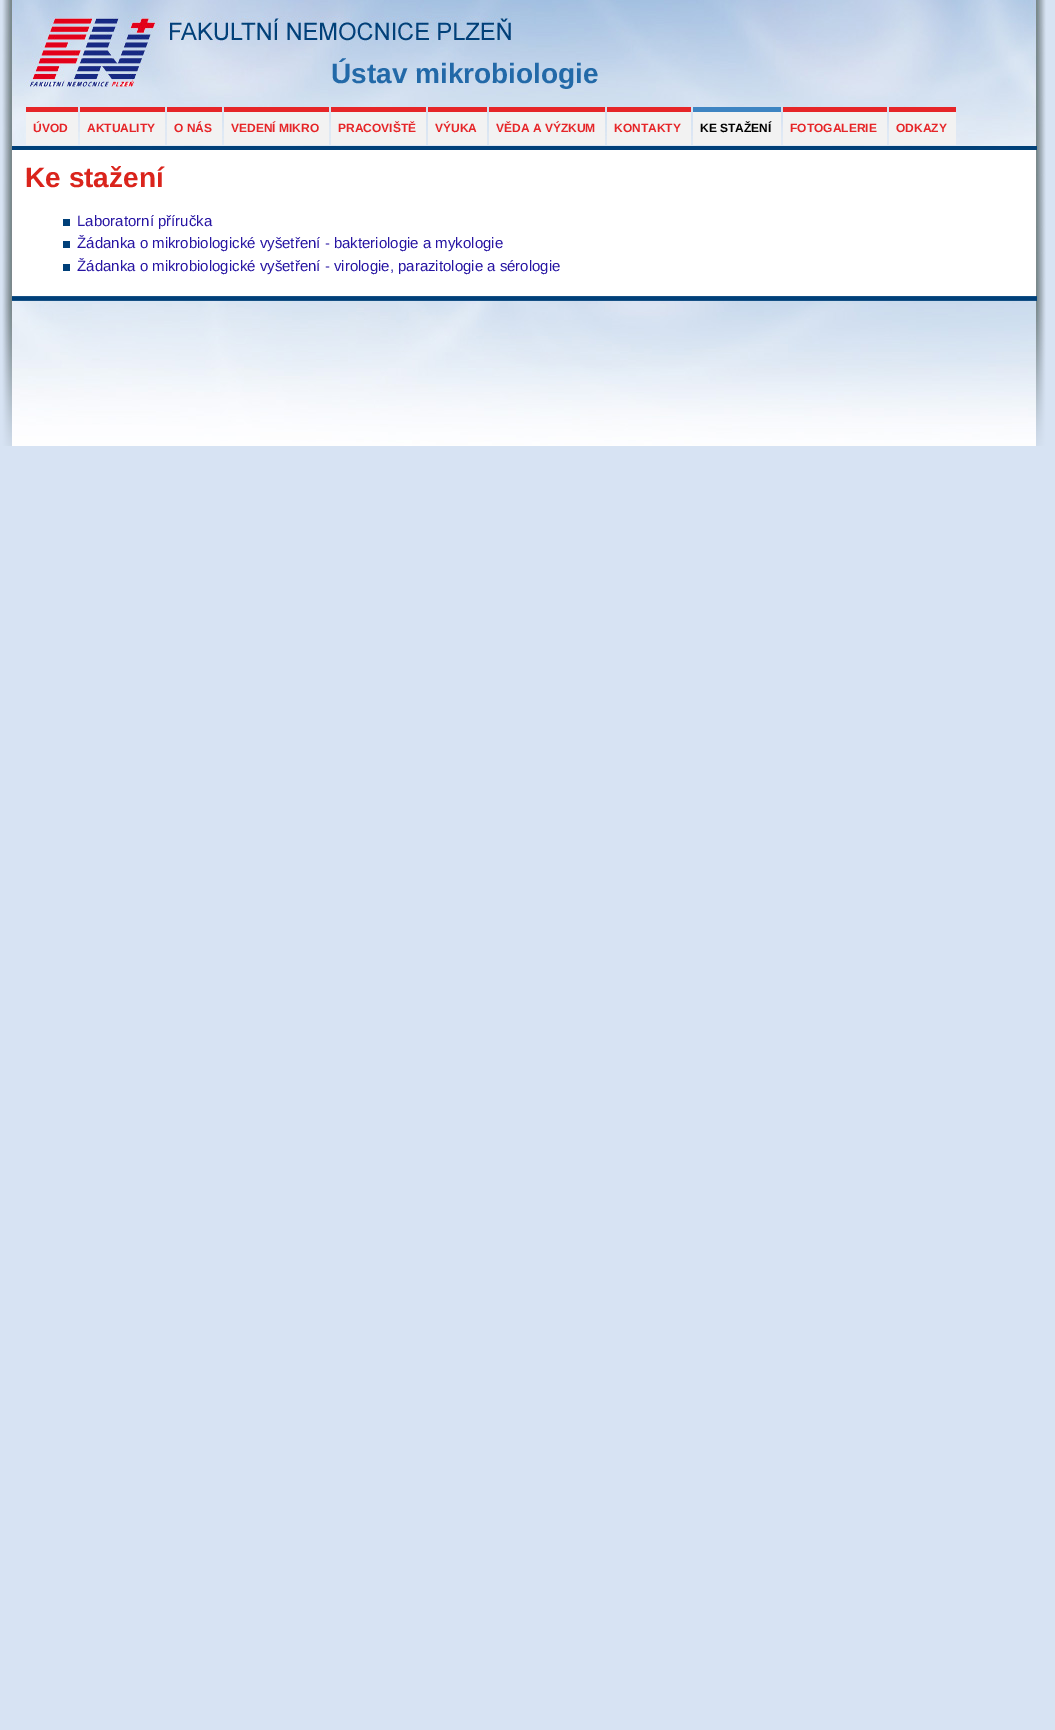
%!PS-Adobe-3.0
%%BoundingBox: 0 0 1055 1730
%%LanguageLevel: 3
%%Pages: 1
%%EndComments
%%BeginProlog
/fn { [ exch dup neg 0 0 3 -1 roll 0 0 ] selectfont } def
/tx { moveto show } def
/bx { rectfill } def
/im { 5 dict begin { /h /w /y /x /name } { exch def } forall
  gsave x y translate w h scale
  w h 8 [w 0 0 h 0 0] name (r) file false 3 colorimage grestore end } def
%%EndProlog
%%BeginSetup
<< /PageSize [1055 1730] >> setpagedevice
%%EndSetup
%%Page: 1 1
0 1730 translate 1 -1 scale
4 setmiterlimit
0.843 0.89 0.953 setrgbcolor
0 0 1055 1730 bx
(image0.raw) 2 0 1044 150 im
/LiberationSans-Bold 28 fn
0.133 0.412 0.659 setrgbcolor
(Ústav mikrobiologie) 331 83 tx
0.949 setgray
26 112 52 33 bx
0.902 0.145 0.157 setrgbcolor
26 107 52 5 bx
/LiberationSans-Bold 12 fn
(ÚVOD) 33 132 tx
0.949 setgray
80 112 85 33 bx
0.902 0.145 0.157 setrgbcolor
80 107 85 5 bx
(AKTUALITY) 87 132 tx
0.949 setgray
167 112 55 33 bx
0.902 0.145 0.157 setrgbcolor
167 107 55 5 bx
(O NÁS) 174 132 tx
0.949 setgray
224 112 105 33 bx
0.902 0.145 0.157 setrgbcolor
224 107 105 5 bx
(VEDENÍ MIKRO) 231 132 tx
0.949 setgray
331 112 95 33 bx
0.902 0.145 0.157 setrgbcolor
331 107 95 5 bx
(PRACOVIŠTĚ) 338 132 tx
0.949 setgray
428 112 59 33 bx
0.902 0.145 0.157 setrgbcolor
428 107 59 5 bx
(VÝUKA) 435 132 tx
0.949 setgray
489 112 116 33 bx
0.902 0.145 0.157 setrgbcolor
489 107 116 5 bx
(VĚDA A VÝZKUM) 496 132 tx
0.949 setgray
607 112 84 33 bx
0.902 0.145 0.157 setrgbcolor
607 107 84 5 bx
(KONTAKTY) 614 132 tx
0.949 setgray
693 112 88 33 bx
0.243 0.518 0.761 setrgbcolor
693 107 88 5 bx
0 setgray
(KE STAŽENÍ) 700 132 tx
0.949 setgray
783 112 104 33 bx
0.902 0.145 0.157 setrgbcolor
783 107 104 5 bx
(FOTOGALERIE) 790 132 tx
0.949 setgray
889 112 67 33 bx
0.902 0.145 0.157 setrgbcolor
889 107 67 5 bx
(ODKAZY) 896 132 tx
(image1.raw) 2 150 1044 146 im
/LiberationSans-Bold 28 fn
0.855 0.141 0.11 setrgbcolor
(Ke stažení) 25 187 tx
0 0.251 0.475 setrgbcolor
63 219 7 7 bx
/LiberationSans-Regular 15 fn
0.153 0.082 0.639 setrgbcolor
(Laboratorní příručka) 77 226 tx
0 0.251 0.475 setrgbcolor
63 241 7 7 bx
0.153 0.082 0.639 setrgbcolor
(Žádanka o mikrobiologické vyšetření - bakteriologie a mykologie) 77 248 tx
0 0.251 0.475 setrgbcolor
63 264 7 7 bx
0.153 0.082 0.639 setrgbcolor
(Žádanka o mikrobiologické vyšetření - virologie, parazitologie a sérologie) 77 271 tx
(image2.raw) 2 296 1044 150 im
showpage
%%EOF
